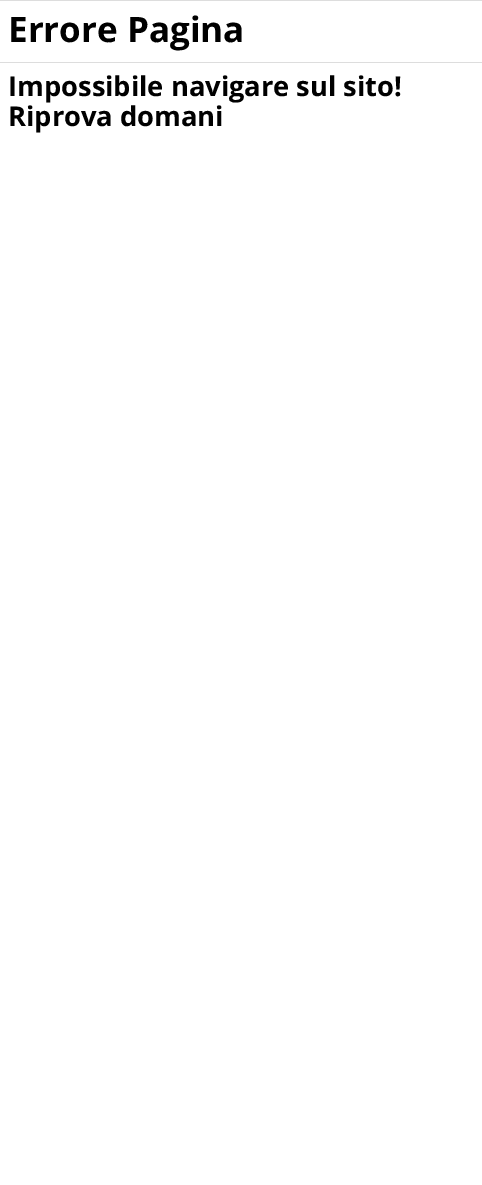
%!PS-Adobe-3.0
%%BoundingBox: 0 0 482 1185
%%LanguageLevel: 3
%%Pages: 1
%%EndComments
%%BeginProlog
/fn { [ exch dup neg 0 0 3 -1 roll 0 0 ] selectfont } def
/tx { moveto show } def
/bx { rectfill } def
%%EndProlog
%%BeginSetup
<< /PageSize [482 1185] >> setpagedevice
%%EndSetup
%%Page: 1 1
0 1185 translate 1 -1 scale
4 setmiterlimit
1 setgray
0 0 482 1185 bx
0.867 setgray
0 0 482 1 bx
/OpenSans-Bold 35 fn
0 setgray
(Errore Pagina) 8 42 tx
0.867 setgray
0 62 482 1 bx
/OpenSans-Bold 27.3 fn
0 setgray
(Impossibile navigare sul sito!) 8 96 tx
(Riprova domani) 8 126 tx
showpage
%%EOF
